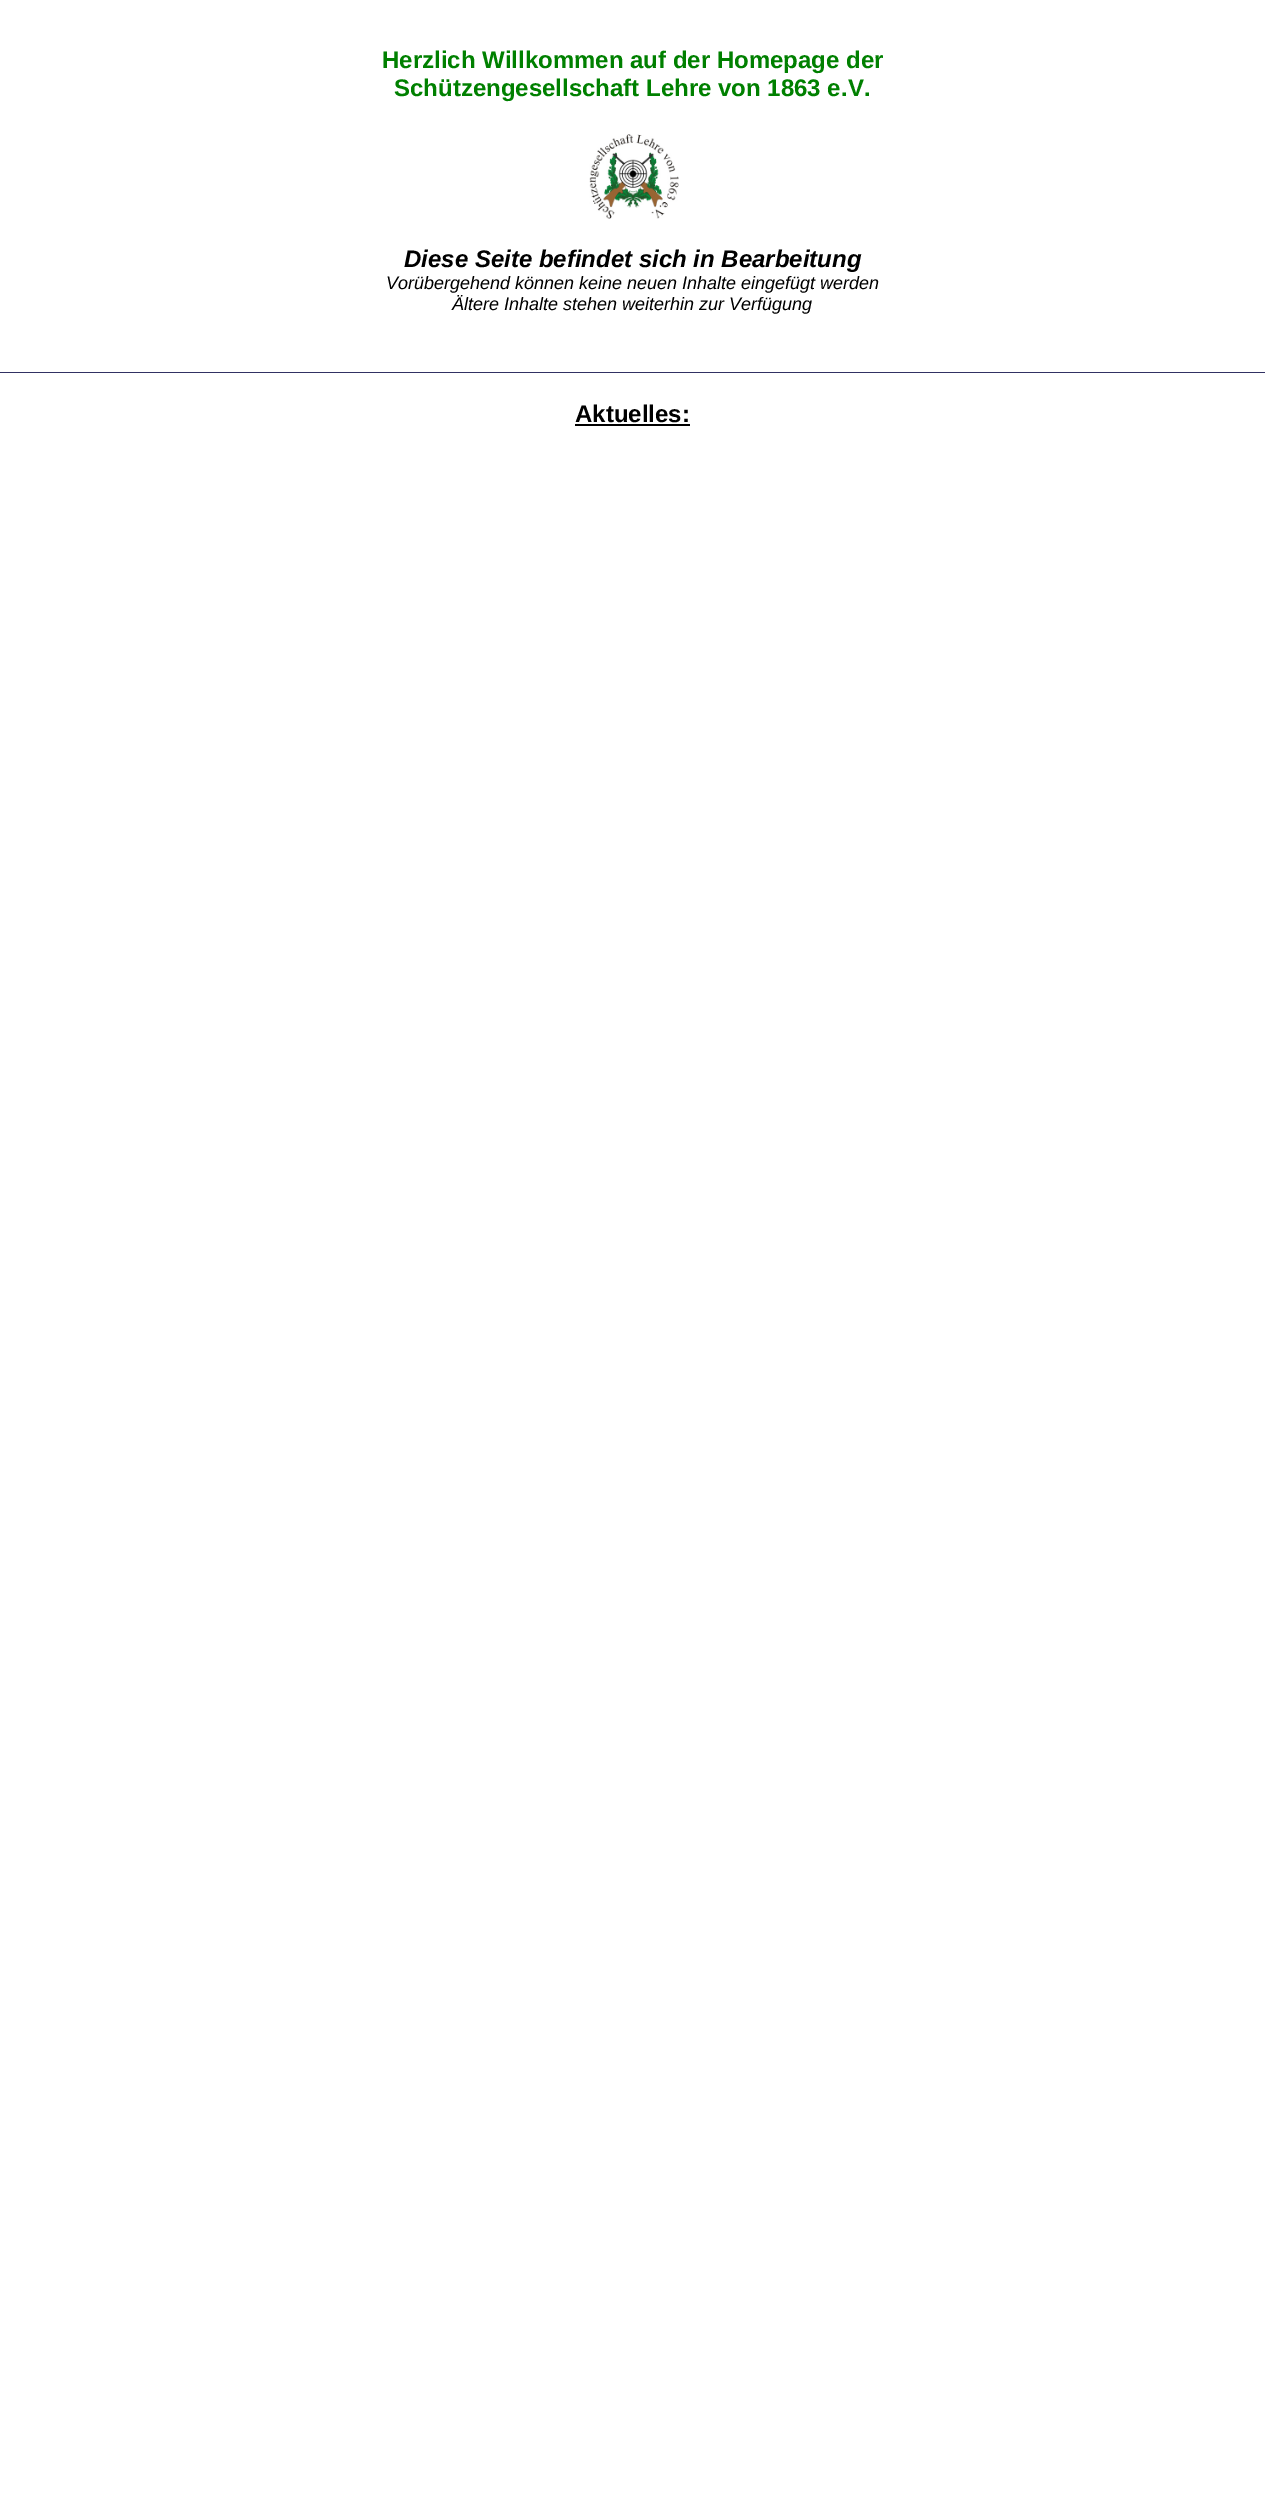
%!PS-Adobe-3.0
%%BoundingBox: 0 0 1265 2515
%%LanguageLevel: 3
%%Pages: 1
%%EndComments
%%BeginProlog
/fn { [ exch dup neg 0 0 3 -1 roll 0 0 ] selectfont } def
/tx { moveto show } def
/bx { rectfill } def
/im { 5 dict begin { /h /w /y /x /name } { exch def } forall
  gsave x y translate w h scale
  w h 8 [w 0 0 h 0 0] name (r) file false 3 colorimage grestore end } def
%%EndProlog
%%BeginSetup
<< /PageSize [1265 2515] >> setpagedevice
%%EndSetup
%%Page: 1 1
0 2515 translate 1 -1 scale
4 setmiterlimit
1 setgray
0 0 1265 2515 bx
/LiberationSans-Bold 24 fn
0 0.502 0 setrgbcolor
(Herzlich Willkommen auf der Homepage der) 382 68 tx
(Schützengesellschaft Lehre von 1863 e.V.) 394 96 tx
(image0.raw) 589 134 90 85 im
/LiberationSans-BoldItalic 24 fn
0 setgray
(Diese Seite befindet sich in Bearbeitung) 404 267 tx
/LiberationSans-Italic 18 fn
(Vorübergehend können keine neuen Inhalte eingefügt werden) 386 289 tx
(Ältere Inhalte stehen weiterhin zur Verfügung) 452 310 tx
0.192 0.192 0.388 setrgbcolor
0 372 1265 1 bx
/LiberationSans-Bold 24 fn
0 setgray
(Aktuelles:) 575 422 tx
575 424 115 2 bx
showpage
%%EOF
